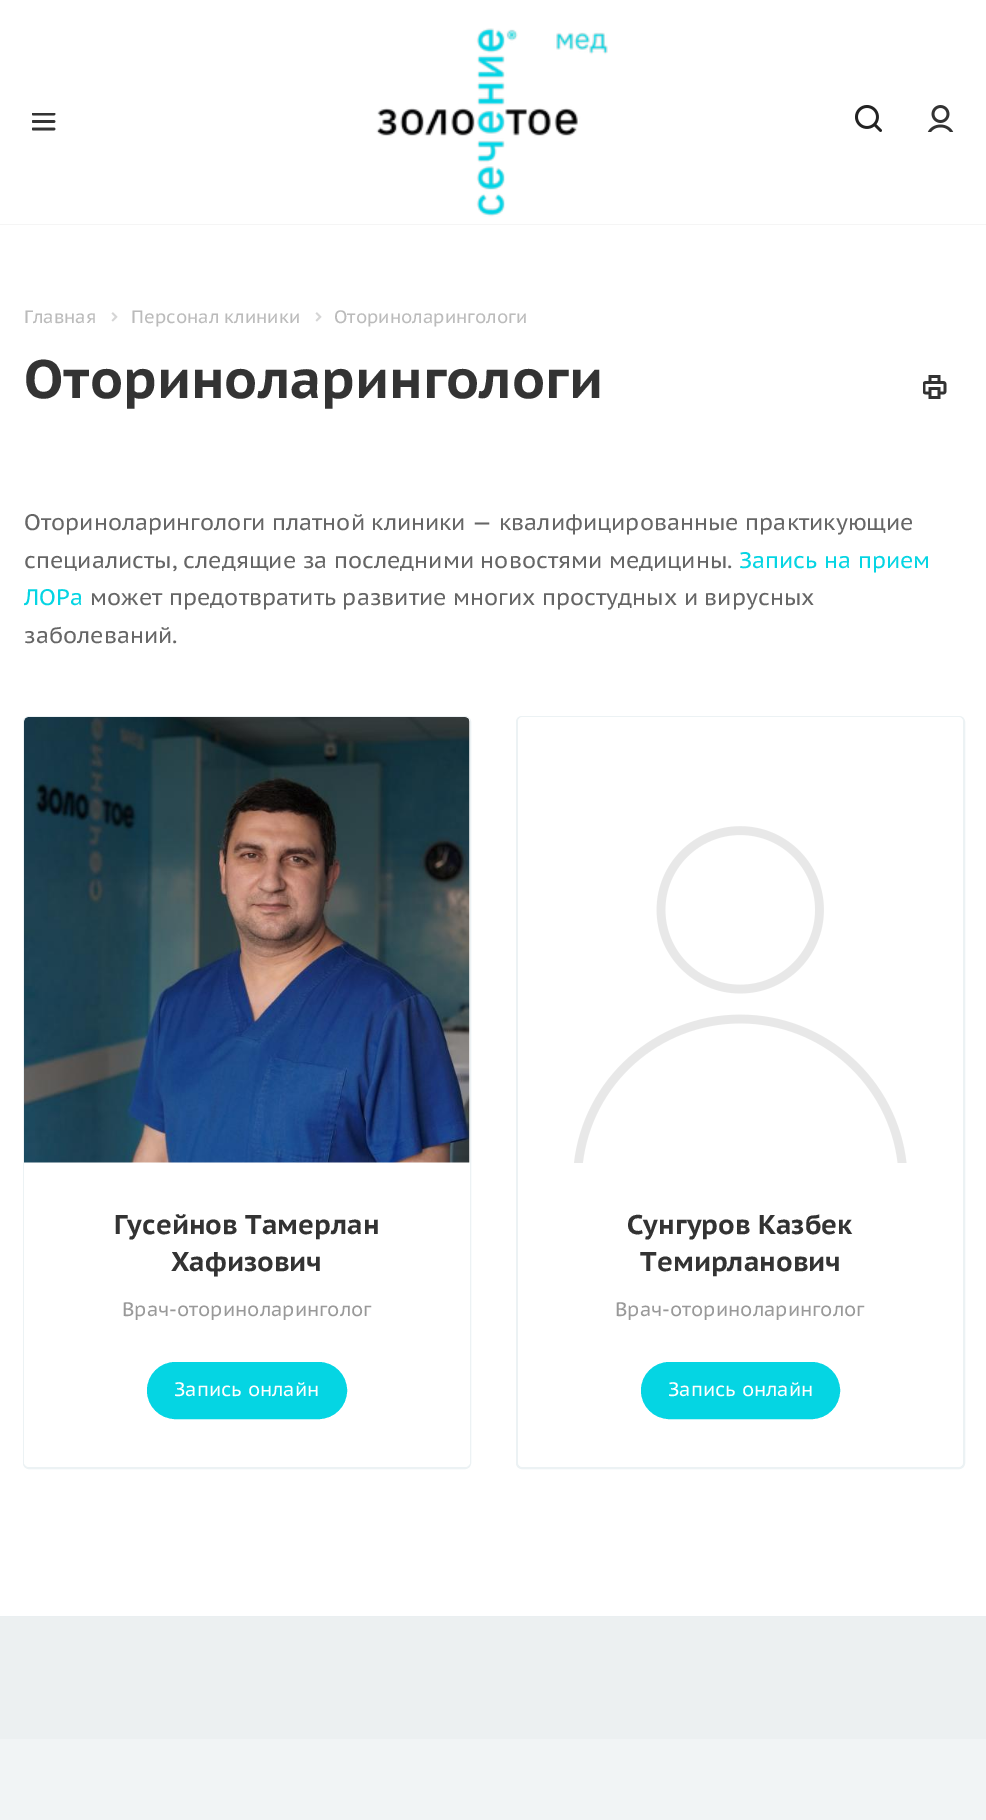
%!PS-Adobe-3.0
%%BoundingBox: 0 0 986 1820
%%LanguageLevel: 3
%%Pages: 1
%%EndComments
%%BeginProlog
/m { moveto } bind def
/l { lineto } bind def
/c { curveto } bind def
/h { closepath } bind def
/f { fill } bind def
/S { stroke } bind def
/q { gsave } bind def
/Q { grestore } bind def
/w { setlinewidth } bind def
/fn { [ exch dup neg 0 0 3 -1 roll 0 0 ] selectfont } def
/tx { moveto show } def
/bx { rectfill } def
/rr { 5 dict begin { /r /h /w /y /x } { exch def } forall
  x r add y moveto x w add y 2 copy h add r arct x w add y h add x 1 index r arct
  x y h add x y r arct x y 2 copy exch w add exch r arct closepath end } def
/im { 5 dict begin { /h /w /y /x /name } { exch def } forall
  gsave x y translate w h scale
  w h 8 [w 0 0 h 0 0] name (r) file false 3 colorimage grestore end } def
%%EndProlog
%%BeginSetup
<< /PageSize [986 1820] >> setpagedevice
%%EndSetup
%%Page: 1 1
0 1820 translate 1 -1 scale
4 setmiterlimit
1 setgray
0 0 986 1820 bx
0.961 setgray
0 224 986 1 bx
(image0.raw) 32 113 24 18 im
(image1.raw) 376 28 232 189 im
(image2.raw) 855 105 27 27 im
(image3.raw) 927 105 27 27 im
/PTSansCaption-Regular 18 fn
0.733 setgray
(Главная) 24 323 tx
(image4.raw) 111 312 7 10 im
(Персонал клиники) 131 323 tx
(image4.raw) 315 312 7 10 im
(Оториноларингологи) 334 323 tx
/PTSansCaption-Bold 54 fn
0.2 setgray
(Оториноларингологи) 24 398 tx
(image5.raw) 923 375 24 24 im
/PTSansCaption-Regular 22.5 fn
0.4 setgray
(Оториноларингологи платной клиники — квалифицированные практикующие) 24 530 tx
(специалисты, следящие за последними новостями медицины.) 24 568 tx
0.02 0.835 0.89 setrgbcolor
(Запись на прием) 739 568 tx
(ЛОРа) 24 605 tx
0.4 setgray
(может предотвратить развитие многих простудных и вирусных) 90 605 tx
(заболеваний.) 24 643 tx
0.925 0.949 0.957 setrgbcolor
2 w
24 717 446 751 5 rr S
1 setgray
24 717 446 750 5 rr f
29 717 m 465 717 l 468 717 470 719 470 722 c 470 1163 l 24 1163 l 24 722 l 24 719 26 717 29 717 c h f
(image6.raw) 24 717 446 446 im
24 1463 446 1 bx
/PTSansCaption-Bold 27 fn
0.2 setgray
(Гусейнов Тамерлан) 114 1234 tx
(Хафизович) 171 1271 tx
/PTSansCaption-Regular 19.5 fn
0.6 setgray
(Врач-оториноларинголог) 122 1316 tx
0.02 0.835 0.89 setrgbcolor
148 1363 198 55 27.5 rr q f Q
S
1 setgray
(Запись онлайн) 174 1396 tx
0.925 0.949 0.957 setrgbcolor
517 717 447 751 5 rr S
1 setgray
518 717 445 750 5 rr f
523 717 m 958 717 l 961 717 963 719 963 722 c 963 1163 l 518 1163 l 518 722 l 518 719 520 717 523 717 c h f
(image7.raw) 574 826 333 337 im
/PTSansCaption-Bold 27 fn
0.2 setgray
(Сунгуров Казбек) 627 1234 tx
(Темирланович) 640 1271 tx
/PTSansCaption-Regular 19.5 fn
0.6 setgray
(Врач-оториноларинголог) 615 1316 tx
0.02 0.835 0.89 setrgbcolor
642 1363 197 55 27.5 rr q f Q
S
1 setgray
(Запись онлайн) 668 1396 tx
0.945 0.957 0.961 setrgbcolor
0 1739 986 81 bx
0.918 0.937 0.945 setrgbcolor
0 1616 986 1 bx
0.925 0.941 0.945 setrgbcolor
0 1617 986 122 bx
showpage
%%EOF
